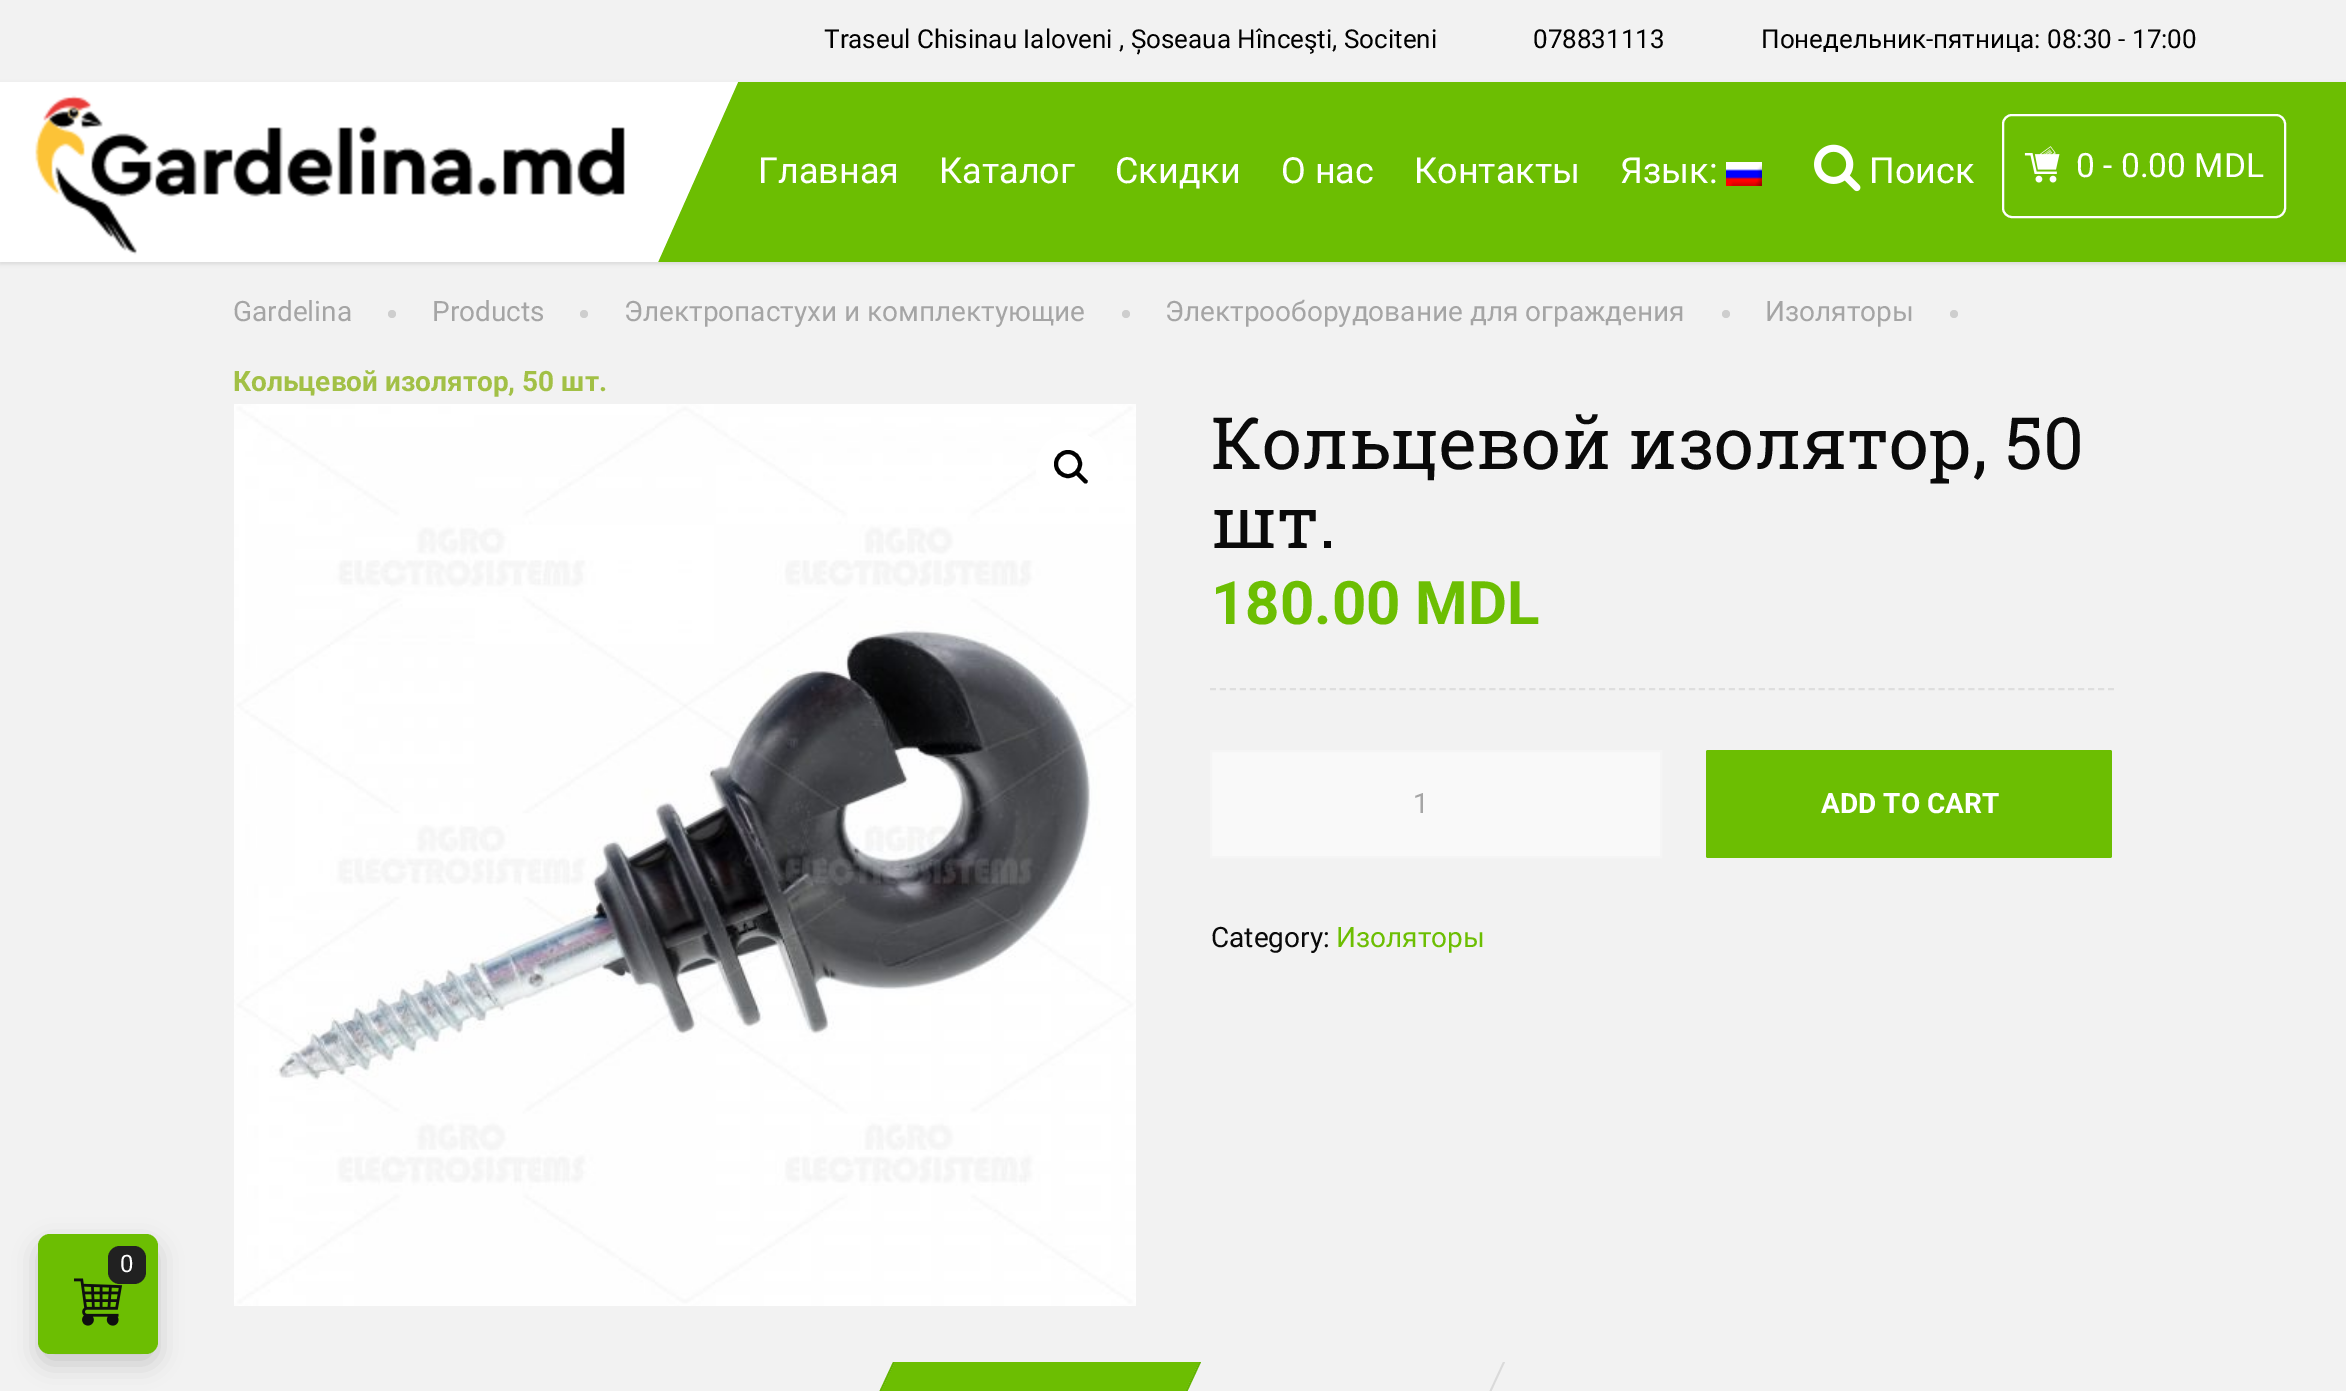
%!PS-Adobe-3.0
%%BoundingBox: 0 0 2346 1391
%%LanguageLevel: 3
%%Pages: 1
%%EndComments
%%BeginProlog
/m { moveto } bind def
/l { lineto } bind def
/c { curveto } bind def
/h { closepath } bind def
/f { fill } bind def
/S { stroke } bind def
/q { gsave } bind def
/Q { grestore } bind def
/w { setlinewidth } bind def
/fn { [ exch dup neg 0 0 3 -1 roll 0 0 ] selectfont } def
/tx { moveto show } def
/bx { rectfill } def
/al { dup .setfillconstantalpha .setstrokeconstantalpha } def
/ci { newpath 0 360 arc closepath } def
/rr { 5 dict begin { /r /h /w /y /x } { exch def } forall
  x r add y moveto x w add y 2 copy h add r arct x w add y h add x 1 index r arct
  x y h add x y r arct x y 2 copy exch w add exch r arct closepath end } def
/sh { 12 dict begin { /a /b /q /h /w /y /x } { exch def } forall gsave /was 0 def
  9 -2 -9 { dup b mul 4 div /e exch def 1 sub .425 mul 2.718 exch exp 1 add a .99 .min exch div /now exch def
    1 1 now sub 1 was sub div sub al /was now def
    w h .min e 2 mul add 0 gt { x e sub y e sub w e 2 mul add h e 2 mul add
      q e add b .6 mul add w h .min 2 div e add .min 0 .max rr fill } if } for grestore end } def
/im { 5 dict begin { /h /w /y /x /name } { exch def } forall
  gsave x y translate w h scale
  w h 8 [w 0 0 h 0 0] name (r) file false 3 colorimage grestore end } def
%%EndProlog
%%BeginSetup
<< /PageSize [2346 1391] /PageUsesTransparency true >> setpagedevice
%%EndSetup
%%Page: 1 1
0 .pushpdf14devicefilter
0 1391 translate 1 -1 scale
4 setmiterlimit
0.949 setgray
0 0 2346 1391 bx
/Roboto-Regular 26 fn
0 setgray
(Traseul Chisinau Ialoveni , Șoseaua Hînceşti, Sociteni) 824 48 tx
(078831113) 1533 48 tx
(Понедельник-пятница: 08:30 - 17:00) 1761 48 tx
0 84 2346 180 0 2 0.1 sh
1 setgray
0 82 658 180 bx
(image0.raw) 35 95 590 160 im
0.424 0.745 0.008 setrgbcolor
658 82 1688 180 bx
1 setgray
658 262 m 658 82 l 738 82 l h f
/Roboto-Regular 36 fn
(Главная) 758 183 tx
(Каталог) 939 183 tx
(Скидки) 1115 183 tx
(О нас) 1281 183 tx
(Контакты) 1414 183 tx
(Язык:) 1620 183 tx
(image1.raw) 1726 162 36 24 im
(image2.raw) 1814 144 47 48 im
(Поиск) 1869 183 tx
2 w
2003 115 282 102 9 rr S
(image3.raw) 2024 146 36 37 im
/Roboto-Regular 33.5 fn
(0 - 0.00 MDL) 2076 177 tx
/Roboto-Regular 28 fn
0.647 setgray
(Gardelina) 233 321 tx
0.808 setgray
392 314 4 ci f
0.647 setgray
(Products) 432 321 tx
0.808 setgray
584 314 4 ci f
0.647 setgray
(Электропастухи и комплектующие) 624 321 tx
0.808 setgray
1126 314 4 ci f
0.647 setgray
(Электрооборудование для ограждения) 1165 321 tx
0.808 setgray
1726 314 4 ci f
0.647 setgray
(Изоляторы) 1765 321 tx
0.808 setgray
1954 314 4 ci f
/Roboto-Bold 28 fn
0.635 0.753 0.275 setrgbcolor
(Кольцевой изолятор, 50 шт.) 233 391 tx
(image4.raw) 234 404 902 902 im
1 setgray
1072 468 36 ci f
0 setgray
4 w
1068 464 12 ci S
1075.5 471.5 m 1076.5 470.5 1078 470.5 1078.5 471.5 c 1087 480 l 1088 480.5 1088 482 1087 483 c 1086.5 483.5 1085 483.5 1084 483 c 1075.5 474.5 l 1075 473.5 1075 472 1075.5 471.5 c h f
/RobotoSlab-Regular 72 fn
0.039 setgray
(Кольцевой изолятор, 50) 1211 469 tx
(шт.) 1211 548 tx
0.871 setgray
2 w
[6 3.98] 0 setdash
1210 689 m 2114 689 l S
/Roboto-Bold 60 fn
0.424 0.745 0.008 setrgbcolor
(180.00 MDL) 1211 624 tx
0.976 setgray
1211 751 m 1661 751 l 1661 857 l 1211 857 l h q f Q
0.961 setgray
[] 0 setdash
S
/Roboto-Regular 28 fn
0.647 setgray
(1) 1413 813 tx
0.424 0.745 0.008 setrgbcolor
1706 750 406 108 2 rr f
/Roboto-Bold 28 fn
1 setgray
(ADD TO CART) 1821 813 tx
/Roboto-Regular 28 fn
0.039 setgray
(Category:) 1211 947 tx
0.424 0.745 0.008 setrgbcolor
(Изоляторы) 1336 947 tx
895 1362 m 1199 1362 l 1147 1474 l 843 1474 l h f
0.384 0.706 0 setrgbcolor
1199 1362 m 1201 1362 l 1149 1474 l 1147 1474 l h f
893 1362 m 895 1362 l 843 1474 l 841 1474 l h f
0.855 setgray
1503 1362 m 1505 1362 l 1453 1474 l 1451 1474 l h f
0 setgray
38 1244 120 120 12 12 0.17 sh
0.424 0.745 0.008 setrgbcolor
38 1234 120 120 12 rr f
(image5.raw) 74 1278 49 48 im
0.129 setgray
108 1246 38 38 12 rr f
/Roboto-Regular 24 fn
1 setgray
(0) 120 1272 tx
.poppdf14devicefilter showpage
%%EOF
